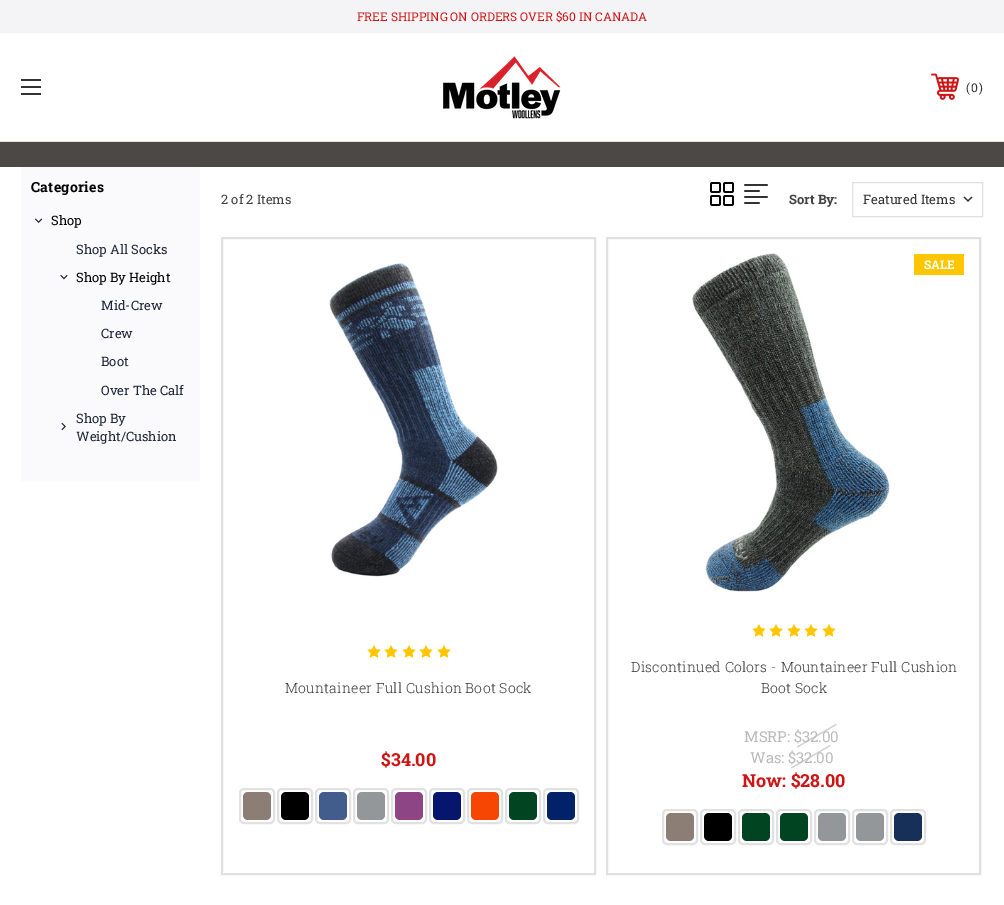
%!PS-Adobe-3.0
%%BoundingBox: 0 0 1004 905
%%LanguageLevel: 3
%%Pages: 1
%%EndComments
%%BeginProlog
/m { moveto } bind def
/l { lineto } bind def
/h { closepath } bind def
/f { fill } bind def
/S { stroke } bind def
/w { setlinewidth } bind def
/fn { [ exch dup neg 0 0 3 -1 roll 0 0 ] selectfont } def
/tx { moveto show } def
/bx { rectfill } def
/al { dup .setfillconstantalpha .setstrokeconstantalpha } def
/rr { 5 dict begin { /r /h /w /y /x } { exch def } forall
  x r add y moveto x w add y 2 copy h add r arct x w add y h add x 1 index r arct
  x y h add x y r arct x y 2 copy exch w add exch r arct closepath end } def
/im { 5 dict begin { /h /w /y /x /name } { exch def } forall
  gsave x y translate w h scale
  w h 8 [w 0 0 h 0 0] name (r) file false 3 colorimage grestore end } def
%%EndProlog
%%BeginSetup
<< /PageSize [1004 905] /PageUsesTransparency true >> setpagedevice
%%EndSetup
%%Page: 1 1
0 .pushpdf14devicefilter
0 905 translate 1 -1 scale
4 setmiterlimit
1 setgray
0 0 1004 905 bx
0.957 0.957 0.969 setrgbcolor
0 0 1004 33 bx
/RobotoSlab-Regular 12 fn
0.808 0.078 0.082 setrgbcolor
(FREE SHIPPING ON ORDERS OVER $60 IN CANADA) 357 21 tx
0.882 setgray
0 141 1004 1 bx
0.2 setgray
21 86 20 2 bx
21 79 20 2 bx
21 93 20 2 bx
(image0.raw) 443 56 118 63 im
(image1.raw) 931 73 28 27 im
(\() 966 92 tx
(0) 971 92 tx
(\)) 979 92 tx
0.294 0.282 0.275 setrgbcolor
0 142 1004 25 bx
0.98 0.98 0.992 setrgbcolor
21 167 179 314 bx
/RobotoSlab-Bold 14 fn
0 setgray
31 192 m 0.25 0 (Categories) ashow
(image2.raw) 34 218 9 5 im
/RobotoSlab-Regular 13 fn
(Shop) 51 225 tx
0.125 0.153 0.22 setrgbcolor
(Shop All Socks) 76 254 tx
(image3.raw) 60 274 8 6 im
0 setgray
(Shop By Height) 76 282 tx
0.125 0.153 0.22 setrgbcolor
(Mid-Crew) 101 310 tx
(Crew) 101 338 tx
(Boot) 101 366 tx
(Over The Calf) 101 395 tx
(image4.raw) 61 422 5 9 im
(Shop By) 76 423 tx
(Weight/Cushion) 76 441 tx
0.259 setgray
(2 of 2 Items) 221 204 tx
(image5.raw) 710 182 24 24 im
(image6.raw) 744 184 24 20 im
/RobotoSlab-Bold 13 fn
(Sort By:) 789 204 tx
(image7.raw) 963 196 10 6 im
0.882 setgray
852.5 182.5 130 34 rectstroke
/RobotoSlab-Regular 13 fn
0.2 setgray
(Featured Items) 863 204 tx
0.882 setgray
2 w
222 238 373 636 rectstroke
(image8.raw) 329 263 169 314 im
(image9.raw) 367 645 14 13 im
(image9.raw) 384 645 14 13 im
(image9.raw) 402 645 14 13 im
(image9.raw) 419 645 14 13 im
(image9.raw) 437 645 14 13 im
/RobotoSlab-Light 14 fn
0.2 setgray
285 693 m 0.25 0 (Mountaineer Full Cushion Boot Sock) ashow
/RobotoSlab-Bold 18 fn
0.808 0.078 0.082 setrgbcolor
($34.00) 381 766 tx
0.882 setgray
240 789 34 34 4 rr S
0.549 0.49 0.459 setrgbcolor
243 792 28 28 5 rr f
0.882 setgray
278 789 34 34 4 rr S
0 setgray
281 792 28 28 5 rr f
0.882 setgray
316 789 34 34 4 rr S
0.259 0.365 0.549 setrgbcolor
319 792 28 28 5 rr f
0.882 setgray
354 789 34 34 4 rr S
0.576 0.592 0.6 setrgbcolor
357 792 28 28 5 rr f
0.882 setgray
392 789 34 34 4 rr S
0.557 0.271 0.522 setrgbcolor
395 792 28 28 5 rr f
0.882 setgray
430 789 34 34 4 rr S
0.024 0.082 0.431 setrgbcolor
433 792 28 28 5 rr f
0.882 setgray
468 789 34 34 4 rr S
0.969 0.275 0.012 setrgbcolor
471 792 28 28 5 rr f
0.882 setgray
506 789 34 34 4 rr S
0.004 0.267 0.129 setrgbcolor
509 792 28 28 5 rr f
0.882 setgray
544 789 34 34 4 rr S
0.004 0.129 0.412 setrgbcolor
547 792 28 28 5 rr f
0.882 setgray
607 238 373 636 rectstroke
(image10.raw) 692 253 198 339 im
1 0.776 0 setrgbcolor
914 254 50 21 bx
/RobotoSlab-Bold 12 fn
1 setgray
(SALE) 924 269 tx
(image9.raw) 752 624 14 13 im
(image9.raw) 769 624 14 13 im
(image9.raw) 787 624 14 13 im
(image9.raw) 804 624 14 13 im
(image9.raw) 822 624 14 13 im
/RobotoSlab-Light 14 fn
0.2 setgray
631 672 m 0.25 0 (Discontinued Colors - Mountaineer Full Cushion) ashow
761 693 m 0.25 0 (Boot Sock) ashow
/RobotoSlab-Regular 15 fn
0.729 setgray
(MSRP: $32.00) 744 742 tx
0.7 al
797 746.5 m 836 724 l 836.5 725 l 797.5 747.5 l h f
1 al
(Was: $32.00) 750 763 tx
0.7 al
791 767.5 m 830 745 l 830.5 746 l 791.5 768.5 l h f
/RobotoSlab-Bold 18 fn
1 al
0.808 0.078 0.082 setrgbcolor
(Now: $28.00) 742 787 tx
0.882 setgray
663 810 34 34 4 rr S
0.549 0.49 0.459 setrgbcolor
666 813 28 28 5 rr f
0.882 setgray
701 810 34 34 4 rr S
0 setgray
704 813 28 28 5 rr f
0.882 setgray
739 810 34 34 4 rr S
0.004 0.267 0.129 setrgbcolor
742 813 28 28 5 rr f
0.882 setgray
777 810 34 34 4 rr S
0.004 0.267 0.129 setrgbcolor
780 813 28 28 5 rr f
0.882 setgray
815 810 34 34 4 rr S
0.576 0.592 0.6 setrgbcolor
818 813 28 28 5 rr f
0.882 setgray
853 810 34 34 4 rr S
0.576 0.592 0.6 setrgbcolor
856 813 28 28 5 rr f
0.882 setgray
891 810 34 34 4 rr S
0.086 0.188 0.341 setrgbcolor
894 813 28 28 5 rr f
.poppdf14devicefilter showpage
%%EOF
